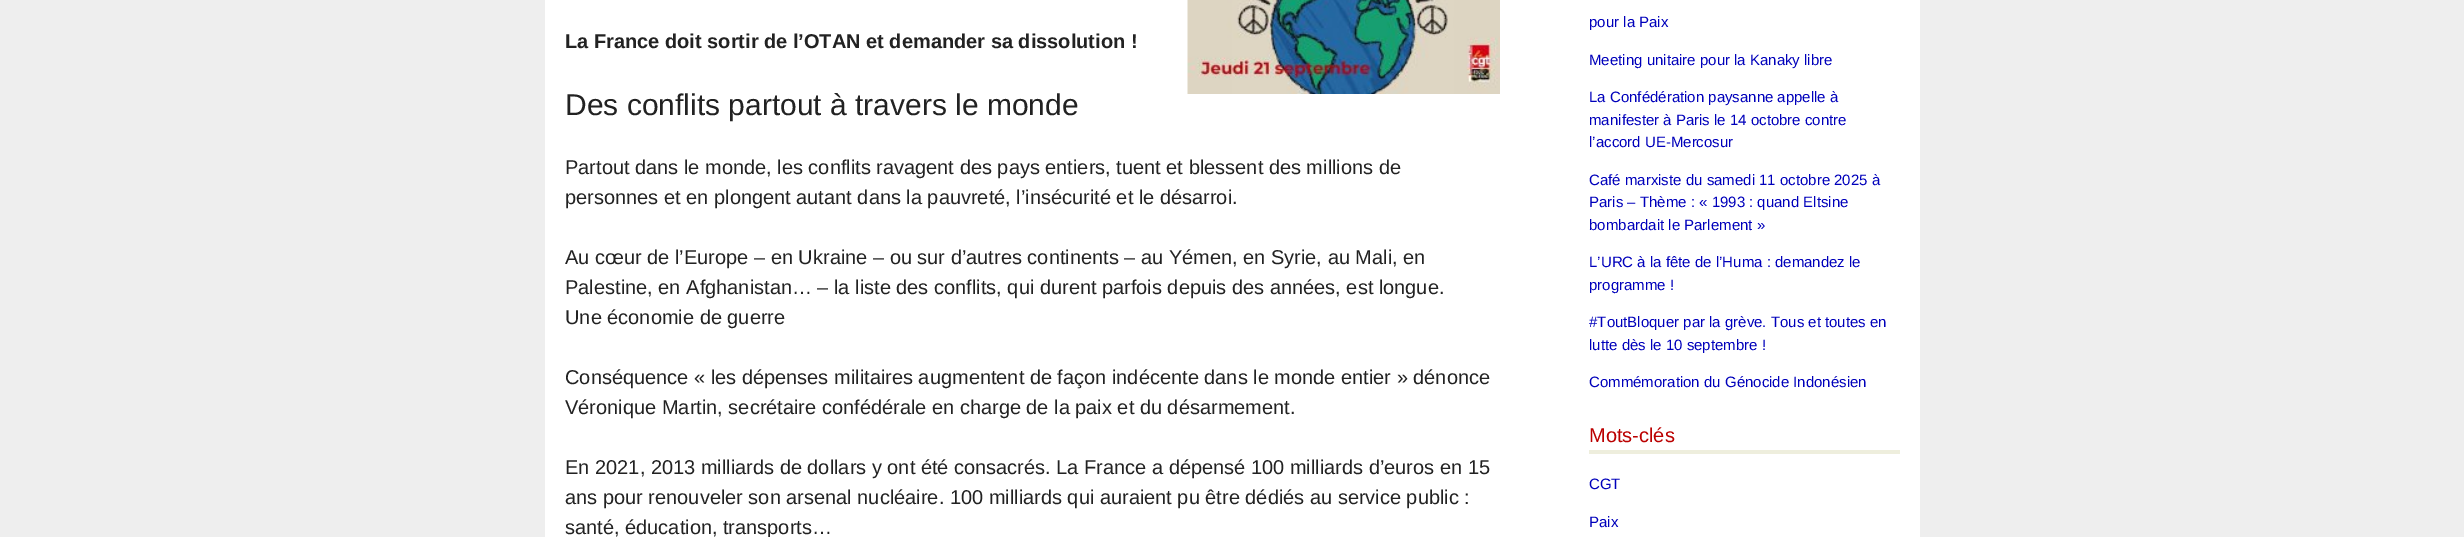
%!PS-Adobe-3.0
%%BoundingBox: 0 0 2464 537
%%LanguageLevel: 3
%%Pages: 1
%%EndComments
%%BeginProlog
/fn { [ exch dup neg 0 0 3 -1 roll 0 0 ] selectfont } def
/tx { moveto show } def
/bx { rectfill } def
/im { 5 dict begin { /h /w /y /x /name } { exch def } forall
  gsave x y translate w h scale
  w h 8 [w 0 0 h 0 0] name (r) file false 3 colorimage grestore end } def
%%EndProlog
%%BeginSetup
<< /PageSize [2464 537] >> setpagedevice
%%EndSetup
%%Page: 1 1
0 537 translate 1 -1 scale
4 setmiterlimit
0.933 setgray
0 0 2464 537 bx
1 setgray
545 0 1375 537 bx
/LiberationSans-Bold 20 fn
0.133 setgray
(La France doit sortir de l’OTAN et demander sa dissolution !) 565 48 tx
(image0.raw) 1187 0 313 94 im
/LiberationSans-Regular 30 fn
(Des conflits partout à travers le monde) 565 115 tx
/LiberationSans-Regular 20 fn
(Partout dans le monde, les conflits ravagent des pays entiers, tuent et blessent des millions de) 565 174 tx
(personnes et en plongent autant dans la pauvreté, l’insécurité et le désarroi.) 565 204 tx
(Au cœur de l’Europe – en Ukraine – ou sur d’autres continents – au Yémen, en Syrie, au Mali, en) 565 264 tx
(Palestine, en Afghanistan… – la liste des conflits, qui durent parfois depuis des années, est longue.) 565 294 tx
(Une économie de guerre) 565 324 tx
(Conséquence « les dépenses militaires augmentent de façon indécente dans le monde entier » dénonce) 565 384 tx
(Véronique Martin, secrétaire confédérale en charge de la paix et du désarmement.) 565 414 tx
(En 2021, 2013 milliards de dollars y ont été consacrés. La France a dépensé 100 milliards d’euros en 15) 565 474 tx
(ans pour renouveler son arsenal nucléaire. 100 milliards qui auraient pu être dédiés au service public :) 565 504 tx
(santé, éducation, transports…) 565 534 tx
/LiberationSans-Regular 15 fn
0 0 0.733 setrgbcolor
(pour la Paix) 1589 27 tx
(Meeting unitaire pour la Kanaky libre) 1589 65 tx
(La Confédération paysanne appelle à) 1589 102 tx
(manifester à Paris le 14 octobre contre) 1589 125 tx
(l’accord UE-Mercosur) 1589 147 tx
(Café marxiste du samedi 11 octobre 2025 à) 1589 185 tx
(Paris – Thème : « 1993 : quand Eltsine) 1589 207 tx
(bombardait le Parlement ») 1589 230 tx
(L’URC à la fête de l’Huma : demandez le) 1589 267 tx
(programme !) 1589 290 tx
(#ToutBloquer par la grève. Tous et toutes en) 1589 327 tx
(lutte dès le 10 septembre !) 1589 350 tx
(Commémoration du Génocide Indonésien) 1589 387 tx
0.933 0.933 0.867 setrgbcolor
1589 450 311 4 bx
/LiberationSans-Regular 20 fn
0.733 0 0 setrgbcolor
(Mots-clés) 1589 442 tx
/LiberationSans-Regular 15 fn
0 0 0.733 setrgbcolor
(CGT) 1589 489 tx
(Paix) 1589 527 tx
showpage
%%EOF
